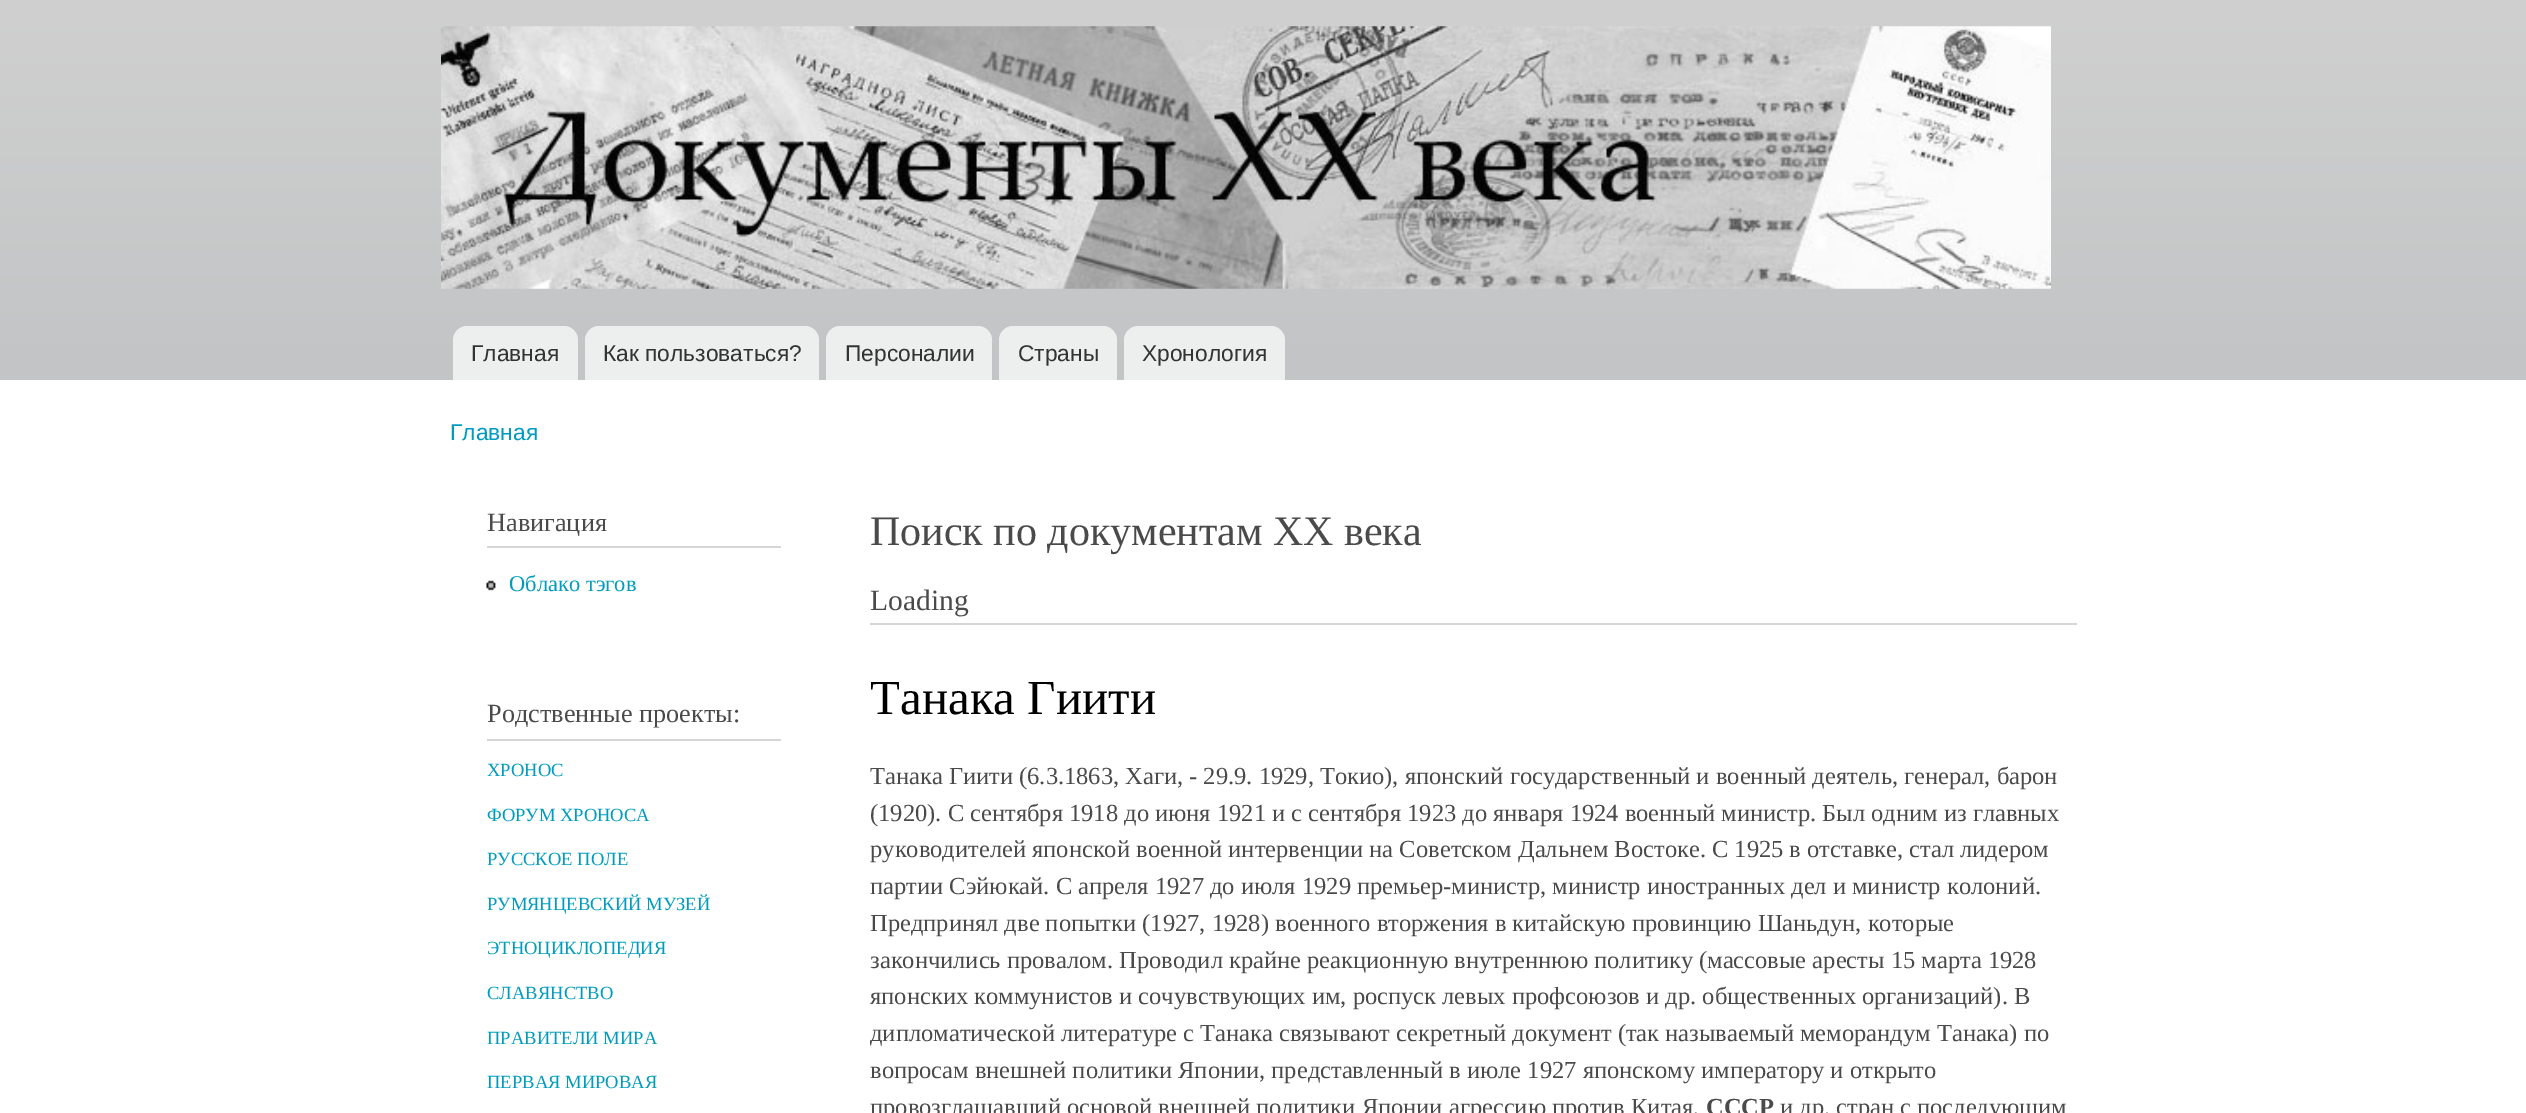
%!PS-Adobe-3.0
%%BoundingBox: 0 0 2526 1113
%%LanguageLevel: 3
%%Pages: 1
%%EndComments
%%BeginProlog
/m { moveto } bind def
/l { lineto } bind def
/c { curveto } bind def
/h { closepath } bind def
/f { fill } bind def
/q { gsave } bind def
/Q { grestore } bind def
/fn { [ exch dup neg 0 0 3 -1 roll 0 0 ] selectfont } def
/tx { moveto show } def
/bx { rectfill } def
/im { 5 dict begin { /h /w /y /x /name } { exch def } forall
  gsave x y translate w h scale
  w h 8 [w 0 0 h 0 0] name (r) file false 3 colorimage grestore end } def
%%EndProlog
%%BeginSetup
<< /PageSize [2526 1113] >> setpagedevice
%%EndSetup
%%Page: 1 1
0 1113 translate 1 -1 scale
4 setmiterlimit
1 setgray
0 0 2526 1113 bx
q 0 0 m 2526 0 l 2526 380 l 0 380 l h clip newpath
<< /ShadingType 2 /ColorSpace /DeviceRGB /Coords [1264 0 1264 380] /Extend [true true] /Function << /FunctionType 2 /Domain [0 1] /C0 [0.816 0.816 0.816] /C1 [0.761 0.769 0.773] /N 1 >> >> shfill Q
(image0.raw) 441 26 1610 263 im
0.929 0.933 0.933 setrgbcolor
467 326 m 564 326 l 571.5 326 578 332.5 578 340 c 578 380 l 453 380 l 453 340 l 453 332.5 459.5 326 467 326 c h f
/LiberationSans-Regular 22.75 fn
0.2 setgray
(Главная) 471 361 tx
0.929 0.933 0.933 setrgbcolor
599 326 m 805 326 l 812.5 326 819 332.5 819 340 c 819 380 l 585 380 l 585 340 l 585 332.5 591.5 326 599 326 c h f
0.2 setgray
(Как пользоваться?) 603 361 tx
0.929 0.933 0.933 setrgbcolor
840 326 m 978 326 l 985.5 326 992 332.5 992 340 c 992 380 l 826 380 l 826 340 l 826 332.5 832.5 326 840 326 c h f
0.2 setgray
(Персоналии) 845 361 tx
0.929 0.933 0.933 setrgbcolor
1013 326 m 1103 326 l 1110.5 326 1117 332.5 1117 340 c 1117 380 l 999 380 l 999 340 l 999 332.5 1005.5 326 1013 326 c h f
0.2 setgray
(Страны) 1018 361 tx
0.929 0.933 0.933 setrgbcolor
1138 326 m 1271 326 l 1278.5 326 1285 332.5 1285 340 c 1285 380 l 1124 380 l 1124 340 l 1124 332.5 1130.5 326 1138 326 c h f
0.2 setgray
(Хронология) 1142 361 tx
0 0.612 0.749 setrgbcolor
(Главная) 450 440 tx
0.839 setgray
487 546 294 2 bx
/LiberationSerif-Regular 26.25 fn
0.29 setgray
(Навигация) 487 531 tx
(image1.raw) 486 580 10 11 im
/LiberationSerif-Regular 22.5 fn
0 0.612 0.749 setrgbcolor
(Облако тэгов) 509 591 tx
0.839 setgray
487 739 294 2 bx
/LiberationSerif-Regular 26.25 fn
0.29 setgray
(Родственные проекты:) 487 722 tx
/LiberationSerif-Regular 18.6 fn
0 0.612 0.749 setrgbcolor
(ХРОНОС) 487 776 tx
(ФОРУМ ХРОНОСА) 487 821 tx
(РУССКОЕ ПОЛЕ) 487 865 tx
(РУМЯНЦЕВСКИЙ МУЗЕЙ) 487 910 tx
(ЭТНОЦИКЛОПЕДИЯ) 487 954 tx
(СЛАВЯНСТВО) 487 999 tx
(ПРАВИТЕЛИ МИРА) 487 1044 tx
(ПЕРВАЯ МИРОВАЯ) 487 1088 tx
0.827 0.843 0.851 setrgbcolor
870 623 1207 2 bx
/LiberationSerif-Regular 42 fn
0.29 setgray
(Поиск по документам XX века) 870 545 tx
/LiberationSerif-Regular 29.5 fn
(Loading) 870 610 tx
/LiberationSerif-Regular 49 fn
0 setgray
(Танака Гиити) 870 714 tx
/LiberationSerif-Regular 24.5 fn
0.29 setgray
(Танака Гиити \(6.3.1863, Хаги, - 29.9. 1929, Токио\), японский государственный и военный деятель, генерал, барон) 870 784 tx
(\(1920\). С сентября 1918 до июня 1921 и с сентября 1923 до января 1924 военный министр. Был одним из главных) 870 821 tx
(руководителей японской военной интервенции на Советском Дальнем Востоке. С 1925 в отставке, стал лидером) 870 857 tx
(партии Сэйюкай. С апреля 1927 до июля 1929 премьер-министр, министр иностранных дел и министр колоний.) 870 894 tx
(Предпринял две попытки \(1927, 1928\) военного вторжения в китайскую провинцию Шаньдун, которые) 870 931 tx
(закончились провалом. Проводил крайне реакционную внутреннюю политику \(массовые аресты 15 марта 1928) 870 968 tx
(японских коммунистов и сочувствующих им, роспуск левых профсоюзов и др. общественных организаций\). В) 870 1004 tx
(дипломатической литературе с Танака связывают секретный документ \(так называемый меморандум Танака\) по) 870 1041 tx
(вопросам внешней политики Японии, представленный в июле 1927 японскому императору и открыто) 870 1078 tx
(провозглашавший основой внешней политики Японии агрессию против Китая,) 870 1115 tx
/LiberationSerif-Bold 24.5 fn
(СССР) 1706 1115 tx
/LiberationSerif-Regular 24.5 fn
(и др. стран с последующим) 1780 1115 tx
showpage
%%EOF
